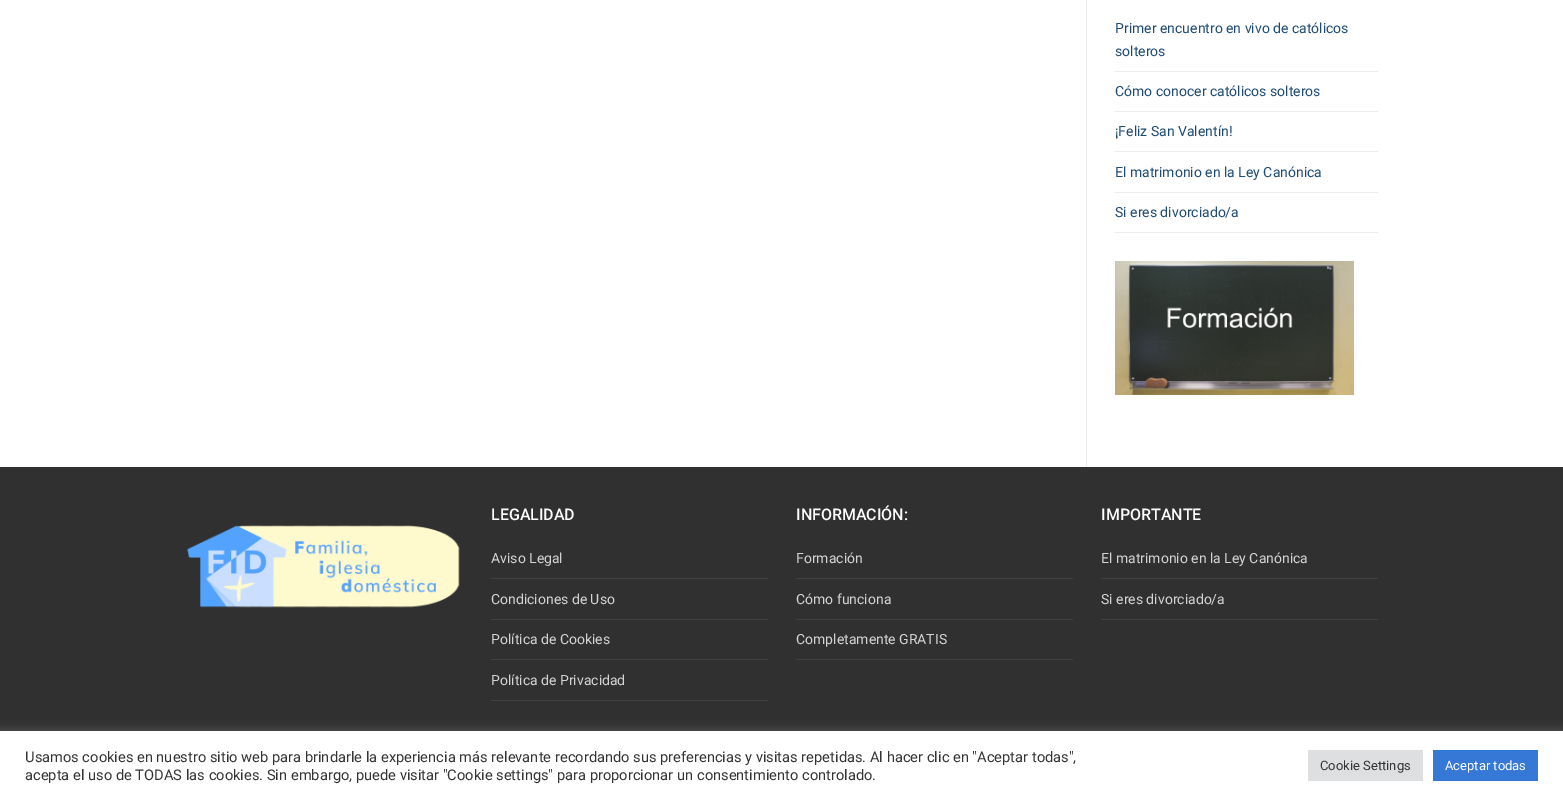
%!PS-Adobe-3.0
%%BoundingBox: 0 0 1563 800
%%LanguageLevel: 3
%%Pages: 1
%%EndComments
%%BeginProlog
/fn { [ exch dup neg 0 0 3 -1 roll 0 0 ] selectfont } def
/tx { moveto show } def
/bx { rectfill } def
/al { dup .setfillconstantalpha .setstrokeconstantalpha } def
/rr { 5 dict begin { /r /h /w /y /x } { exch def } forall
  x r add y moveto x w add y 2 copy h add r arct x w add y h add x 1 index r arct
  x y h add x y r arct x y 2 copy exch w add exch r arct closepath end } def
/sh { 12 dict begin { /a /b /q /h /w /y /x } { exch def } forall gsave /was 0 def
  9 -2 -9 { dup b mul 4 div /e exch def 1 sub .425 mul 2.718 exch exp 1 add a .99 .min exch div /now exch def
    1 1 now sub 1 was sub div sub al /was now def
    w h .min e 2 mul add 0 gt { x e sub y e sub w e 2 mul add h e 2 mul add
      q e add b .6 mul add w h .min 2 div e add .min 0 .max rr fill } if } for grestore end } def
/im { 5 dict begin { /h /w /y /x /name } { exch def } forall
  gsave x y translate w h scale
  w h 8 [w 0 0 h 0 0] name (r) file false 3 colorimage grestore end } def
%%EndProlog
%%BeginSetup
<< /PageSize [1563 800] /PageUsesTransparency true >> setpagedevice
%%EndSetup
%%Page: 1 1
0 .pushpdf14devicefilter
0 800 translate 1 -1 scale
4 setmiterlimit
1 setgray
0 0 1563 800 bx
0.918 0.925 0.933 setrgbcolor
1086 0 1 467 bx
1115 71 263 1 bx
/Roboto-Regular 14 fn
0.118 0.294 0.459 setrgbcolor
(Primer encuentro en vivo de católicos) 1115 33 tx
(solteros) 1115 56 tx
0.918 0.925 0.933 setrgbcolor
1115 111 263 1 bx
0.118 0.294 0.459 setrgbcolor
(Cómo conocer católicos solteros) 1115 96 tx
0.918 0.925 0.933 setrgbcolor
1115 151 263 1 bx
0.118 0.294 0.459 setrgbcolor
(¡Feliz San Valentín!) 1115 136 tx
0.918 0.925 0.933 setrgbcolor
1115 192 263 1 bx
0.118 0.294 0.459 setrgbcolor
(El matrimonio en la Ley Canónica) 1115 177 tx
0.918 0.925 0.933 setrgbcolor
1115 232 263 1 bx
0.118 0.294 0.459 setrgbcolor
(Si eres divorciado/a) 1115 217 tx
(image0.raw) 1115 261 239 134 im
0.188 setgray
0 467 1563 264 bx
(image1.raw) 187 525 273 83 im
/Roboto-Medium 16 fn
0.992 setgray
(LEGALIDAD) 491 520 tx
0.255 setgray
491 578 277 1 bx
/Roboto-Regular 14 fn
0.831 setgray
(Aviso Legal) 491 563 tx
0.255 setgray
491 619 277 1 bx
0.831 setgray
(Condiciones de Uso) 491 604 tx
0.255 setgray
491 659 277 1 bx
0.831 setgray
(Política de Cookies) 491 644 tx
0.255 setgray
491 700 277 1 bx
0.831 setgray
(Política de Privacidad) 491 685 tx
/Roboto-Medium 16 fn
0.992 setgray
(INFORMACIÓN:) 796 520 tx
0.255 setgray
796 578 277 1 bx
/Roboto-Regular 14 fn
0.831 setgray
(Formación) 796 563 tx
0.255 setgray
796 619 277 1 bx
0.831 setgray
(Cómo funciona) 796 604 tx
0.255 setgray
796 659 277 1 bx
0.831 setgray
(Completamente GRATIS) 796 644 tx
/Roboto-Medium 16 fn
0.992 setgray
(IMPORTANTE) 1101 520 tx
0.255 setgray
1101 578 277 1 bx
/Roboto-Regular 14 fn
0.831 setgray
(El matrimonio en la Ley Canónica) 1101 563 tx
0.255 setgray
1101 619 277 1 bx
0.831 setgray
(Si eres divorciado/a) 1101 604 tx
0.675 0.671 0.671 setrgbcolor
0 730 1563 69 0 5 0.3 sh
1 setgray
0 731 1563 69 bx
/Roboto-Regular 14.67 fn
0.2 setgray
(Usamos cookies en nuestro sitio web para brindarle la experiencia más relevante recordando sus preferencias y visitas repetidas. Al hacer clic en "Aceptar todas",) 25 762 tx
(acepta el uso de TODAS las cookies. Sin embargo, puede visitar "Cookie settings" para proporcionar un consentimiento controlado.) 25 780 tx
0.871 0.875 0.878 setrgbcolor
1308 750 115 31 bx
/Roboto-Regular 13 fn
0.2 setgray
(Cookie Settings) 1320 770 tx
0.208 0.471 0.839 setrgbcolor
1433 750 105 31 bx
0.992 setgray
(Aceptar todas) 1445 770 tx
.poppdf14devicefilter showpage
%%EOF
